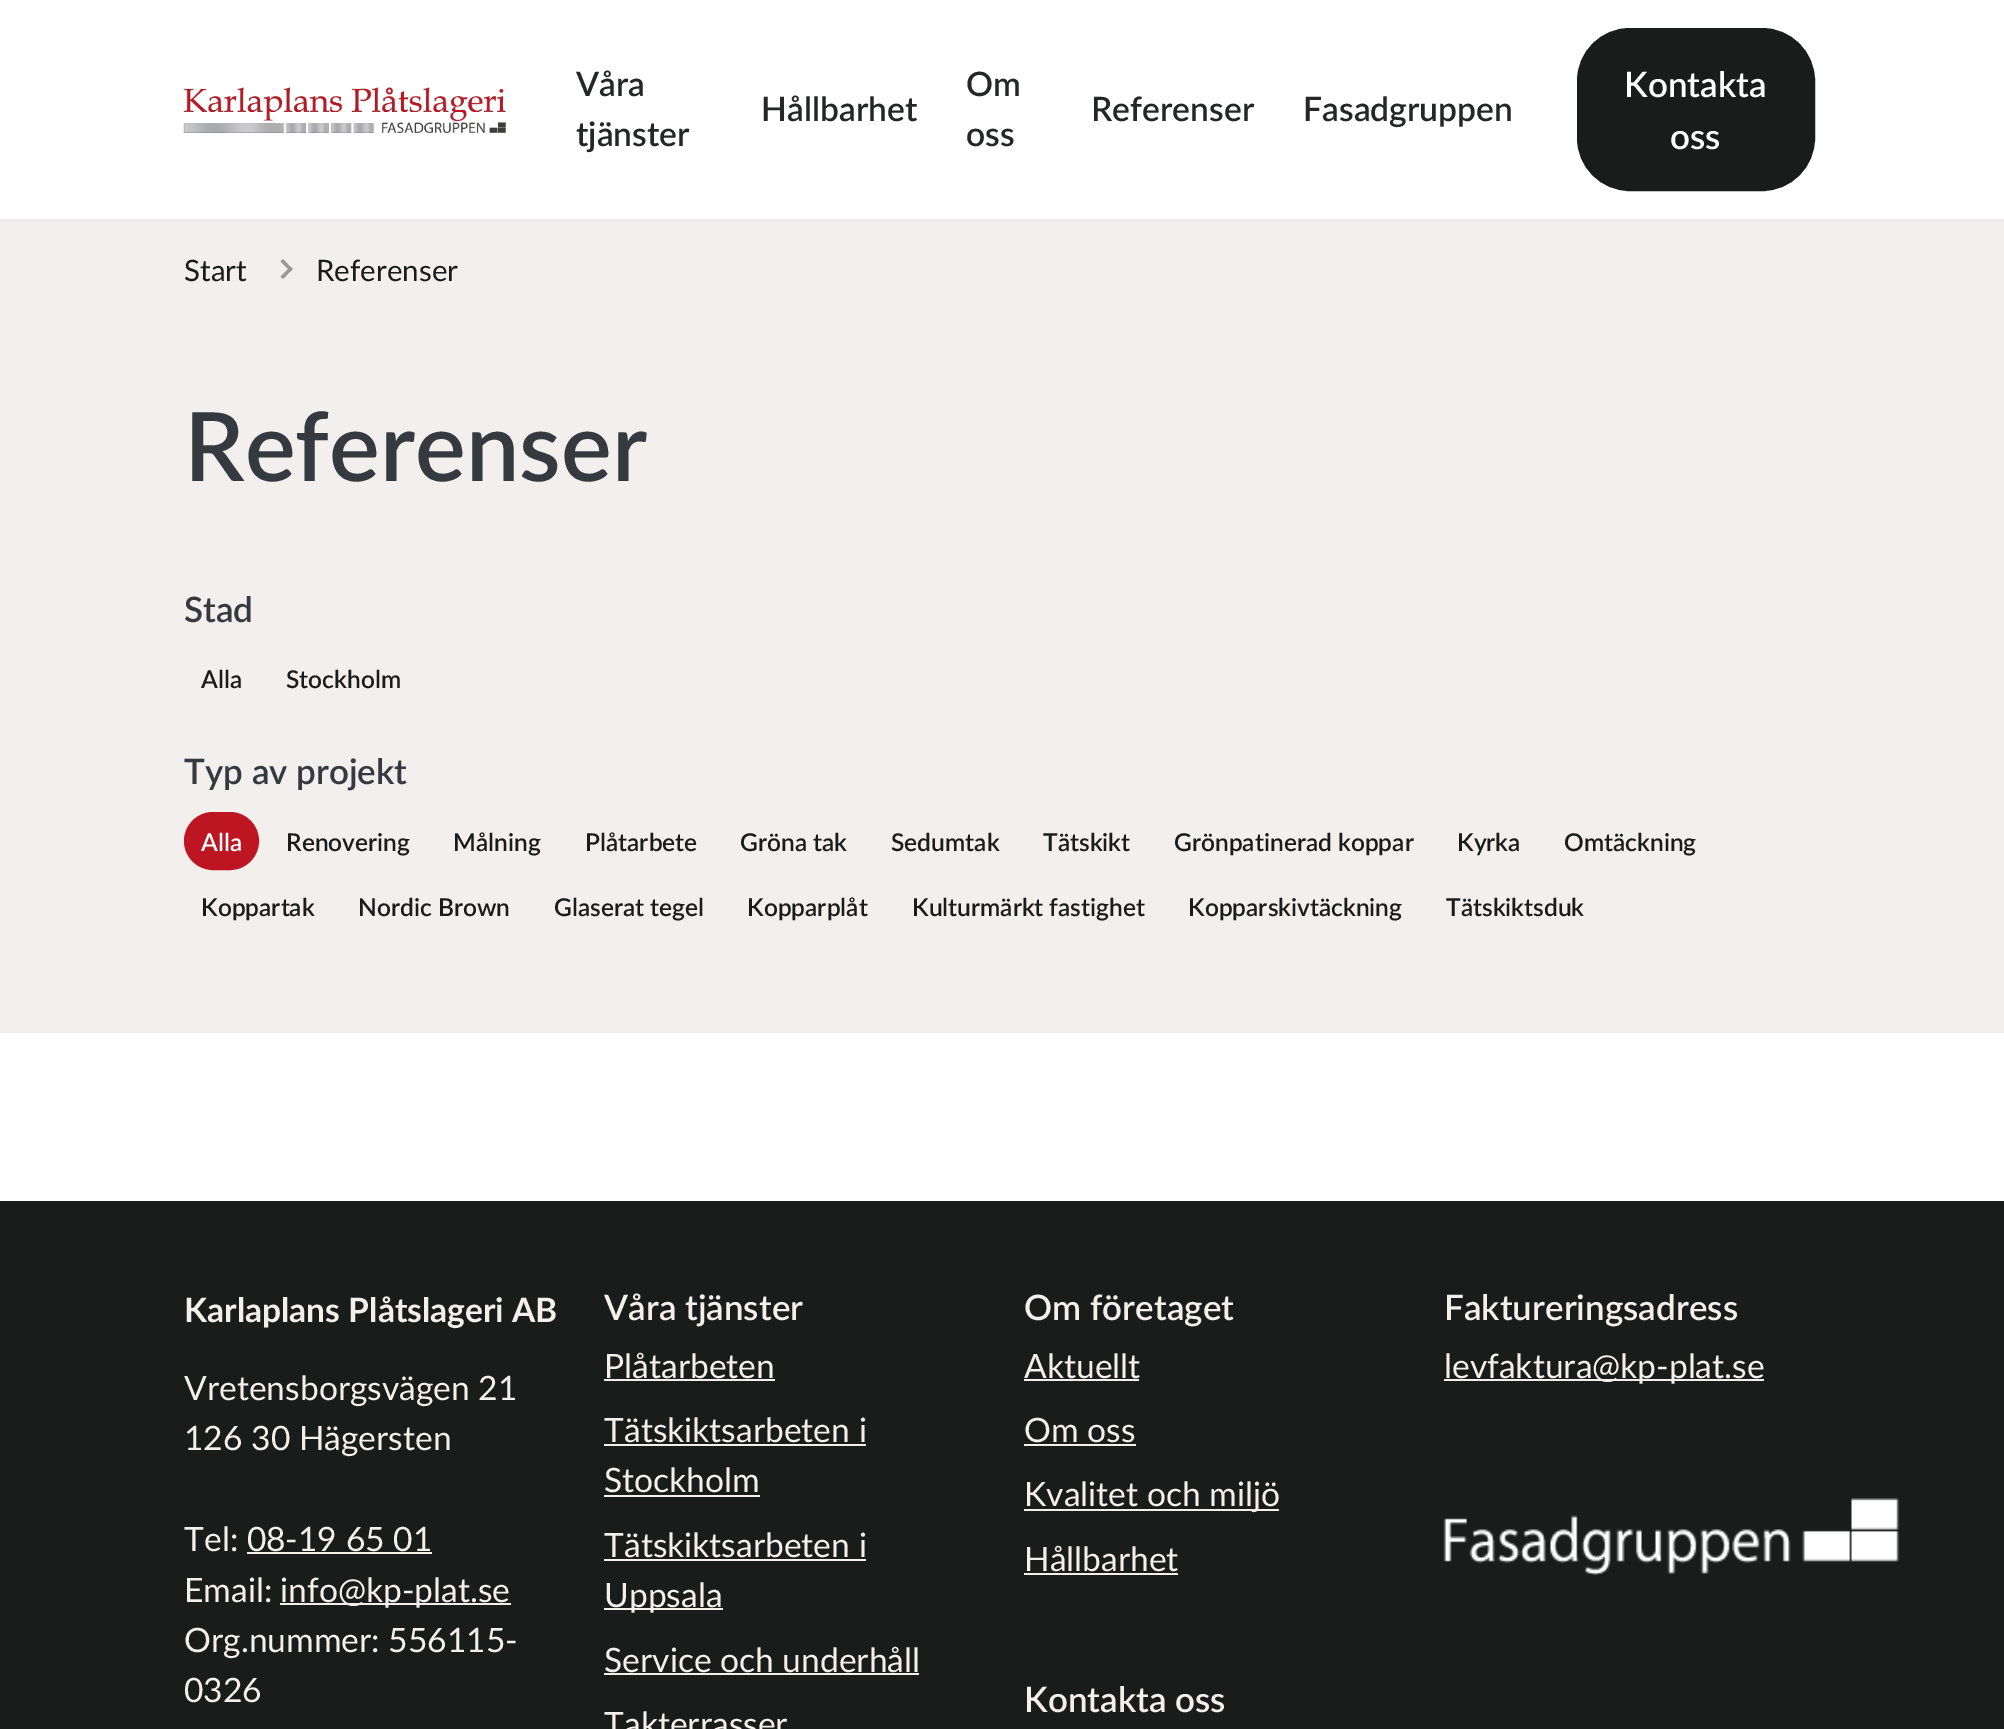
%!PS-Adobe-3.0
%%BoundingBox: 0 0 2004 1729
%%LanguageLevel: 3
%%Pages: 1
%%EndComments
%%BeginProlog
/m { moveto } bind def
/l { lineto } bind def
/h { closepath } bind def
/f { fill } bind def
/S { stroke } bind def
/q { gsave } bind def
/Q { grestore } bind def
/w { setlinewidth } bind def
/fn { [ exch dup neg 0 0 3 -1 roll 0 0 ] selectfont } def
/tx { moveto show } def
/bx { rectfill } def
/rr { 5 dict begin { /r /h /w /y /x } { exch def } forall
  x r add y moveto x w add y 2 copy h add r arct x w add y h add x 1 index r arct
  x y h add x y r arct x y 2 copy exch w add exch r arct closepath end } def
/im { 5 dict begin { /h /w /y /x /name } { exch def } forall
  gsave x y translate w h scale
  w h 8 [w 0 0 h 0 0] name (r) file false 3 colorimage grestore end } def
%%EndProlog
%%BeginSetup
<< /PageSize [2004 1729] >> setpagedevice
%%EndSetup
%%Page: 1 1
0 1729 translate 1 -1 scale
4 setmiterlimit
1 setgray
0 0 2004 1729 bx
0.922 0.914 0.945 setrgbcolor
0 219 2004 2 bx
(image0.raw) 183 87 323 46 im
/Lato-SemiBold 33.6 fn
0.145 0.149 0.149 setrgbcolor
(Våra) 576 96 tx
(tjänster) 576 146 tx
(Hållbarhet) 761 121 tx
(Om) 966 96 tx
(oss) 966 146 tx
(Referenser) 1091 121 tx
(Fasadgruppen) 1303 121 tx
0.102 0.106 0.106 setrgbcolor
1579 30 234 159 51 rr q f Q
4 w
S
/Lato-SemiBold 35 fn
1 setgray
(Kontakta) 1624 97 tx
(oss) 1670 149 tx
0.949 0.937 0.929 setrgbcolor
0 221 2004 812 bx
/Lato-Regular 29.5 fn
0.102 0.106 0.106 setrgbcolor
(Start) 184 281 tx
0.6 setgray
280.5 261.5 m 283 259 l 292.5 269 l 290.5 271.5 l h f
280.5 276.5 m 290.5 266.5 l 292.5 269 l 283 279 l h f
0.102 0.106 0.106 setrgbcolor
(Referenser) 316 281 tx
/Lato-SemiBold 95.5 fn
0.204 0.227 0.247 setrgbcolor
(Referenser) 184 481 tx
/Lato-SemiBold 35 fn
(Stad) 184 622 tx
/Lato-SemiBold 24.5 fn
0.102 0.106 0.106 setrgbcolor
(Alla) 201 688 tx
(Stockholm) 286 688 tx
/Lato-SemiBold 35 fn
0.204 0.227 0.247 setrgbcolor
(Typ av projekt) 184 784 tx
0.741 0.082 0.129 setrgbcolor
186 814 71 54 27 rr q f Q
S
/Lato-SemiBold 24.5 fn
1 setgray
(Alla) 201 851 tx
0.102 0.106 0.106 setrgbcolor
(Renovering) 286 851 tx
(Målning) 453 851 tx
(Plåtarbete) 585 851 tx
(Gröna tak) 740 851 tx
(Sedumtak) 891 851 tx
(Tätskikt) 1043 851 tx
(Grönpatinerad koppar) 1174 851 tx
(Kyrka) 1457 851 tx
(Omtäckning) 1564 851 tx
(Koppartak) 201 916 tx
(Nordic Brown) 358 916 tx
(Glaserat tegel) 554 916 tx
(Kopparplåt) 747 916 tx
(Kulturmärkt fastighet) 912 916 tx
(Kopparskivtäckning) 1188 916 tx
(Tätskiktsduk) 1446 916 tx
0 1201 2004 528 bx
/Lato-Bold 33.6 fn
0.949 0.937 0.929 setrgbcolor
(Karlaplans Plåtslageri AB) 184 1322 tx
/Lato-Regular 33.6 fn
(Vretensborgsvägen 21) 184 1400 tx
(126 30 Hägersten) 184 1450 tx
(Tel: 08-19 65 01) 184 1551 tx
247 1552 185 2 bx
(Email:) 184 1602 tx
280 1603 231 2 bx
(info@kp-plat.se) 280 1602 tx
(Org.nummer: 556115-) 184 1652 tx
(0326) 184 1702 tx
/Lato-SemiBold 35 fn
(Våra tjänster) 604 1320 tx
/Lato-Regular 33.6 fn
(Plåtarbeten) 604 1378 tx
604 1379 171 2 bx
(Tätskiktsarbeten i) 604 1442 tx
604 1444 262 2 bx
(Stockholm) 604 1492 tx
604 1495 156 2 bx
(Tätskiktsarbeten i) 604 1557 tx
604 1559 262 2 bx
604 1608 119 2 bx
(Uppsala) 604 1607 tx
(Service och underhåll) 604 1672 tx
604 1673 315 2 bx
(Takterrasser) 604 1736 tx
/Lato-SemiBold 35 fn
(Om företaget) 1024 1320 tx
/Lato-Regular 33.6 fn
(Aktuellt) 1024 1378 tx
1024 1379 115 2 bx
(Om oss) 1024 1442 tx
1024 1444 112 2 bx
1024 1509 255 2 bx
(Kvalitet och miljö) 1024 1506 tx
(Hållbarhet) 1024 1571 tx
1024 1573 154 2 bx
/Lato-SemiBold 35 fn
(Kontakta oss) 1024 1712 tx
(Faktureringsadress) 1444 1320 tx
1444 1379 320 2 bx
/Lato-Regular 33.6 fn
(levfaktura@kp-plat.se) 1444 1378 tx
(image1.raw) 1443 1498 456 77 im
showpage
%%EOF
